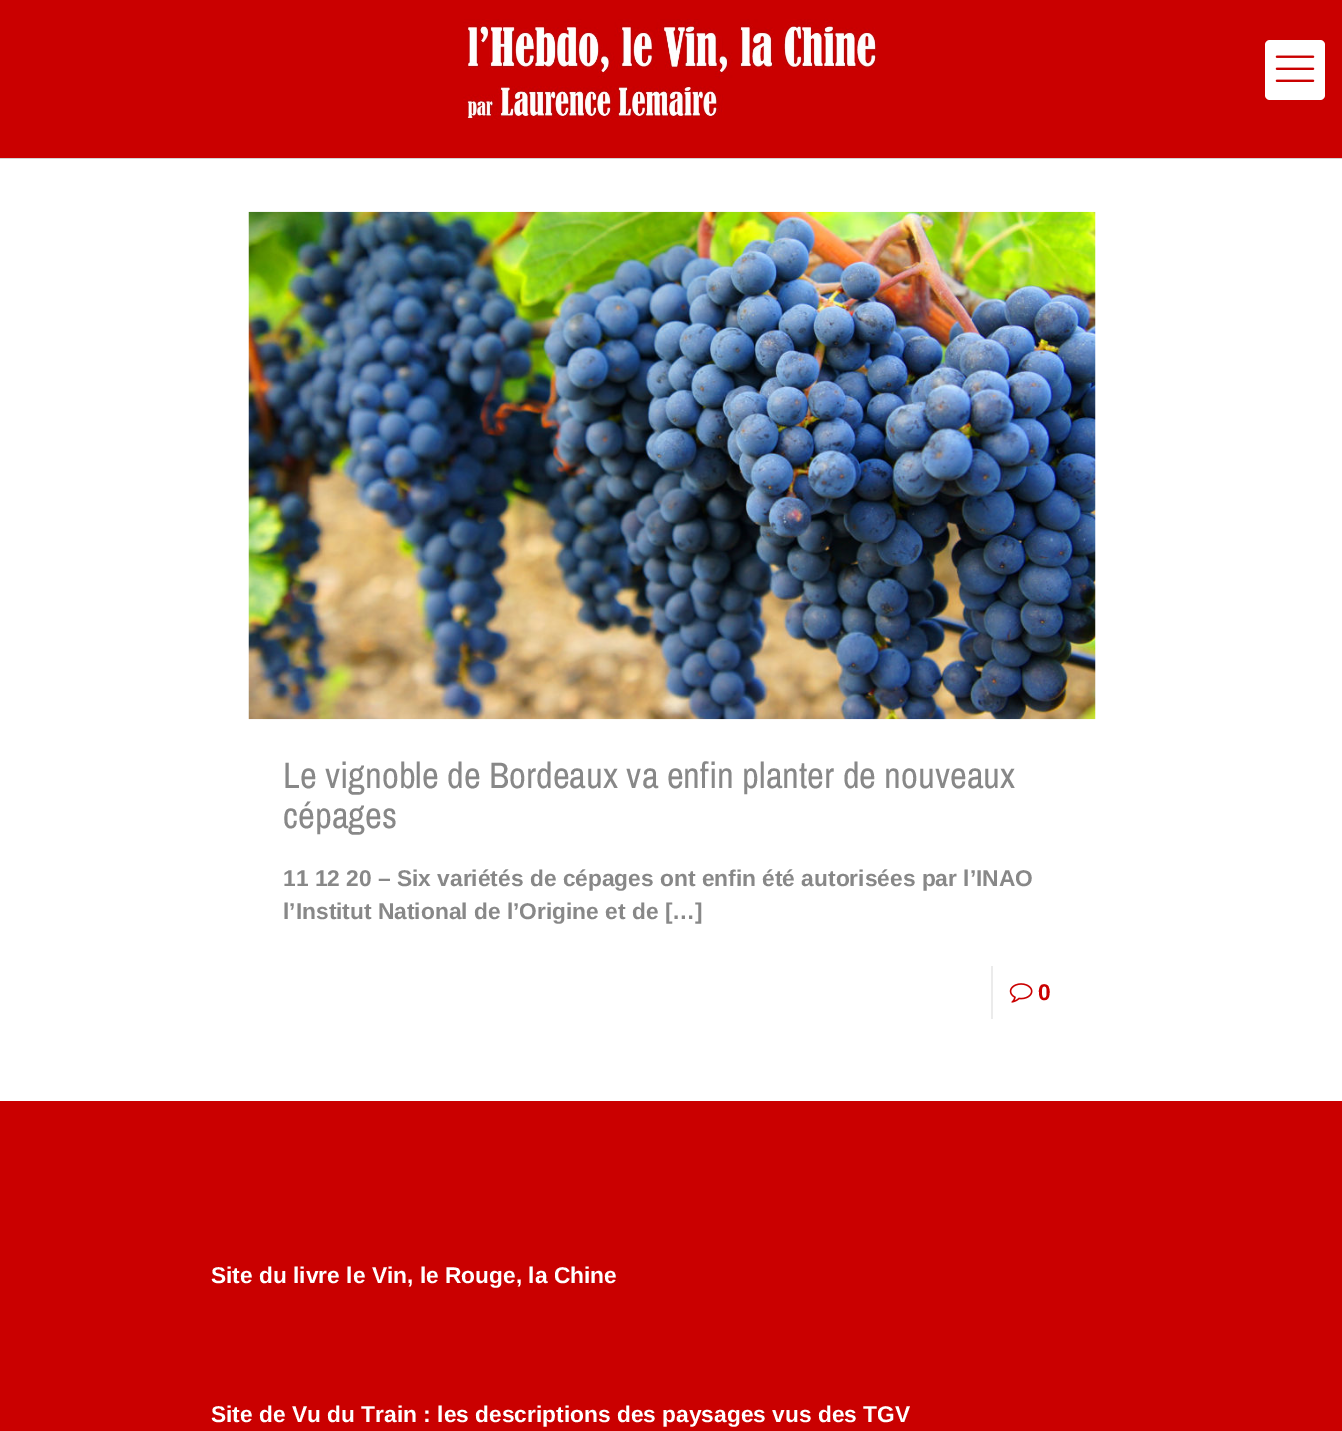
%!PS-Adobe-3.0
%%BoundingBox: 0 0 1342 1431
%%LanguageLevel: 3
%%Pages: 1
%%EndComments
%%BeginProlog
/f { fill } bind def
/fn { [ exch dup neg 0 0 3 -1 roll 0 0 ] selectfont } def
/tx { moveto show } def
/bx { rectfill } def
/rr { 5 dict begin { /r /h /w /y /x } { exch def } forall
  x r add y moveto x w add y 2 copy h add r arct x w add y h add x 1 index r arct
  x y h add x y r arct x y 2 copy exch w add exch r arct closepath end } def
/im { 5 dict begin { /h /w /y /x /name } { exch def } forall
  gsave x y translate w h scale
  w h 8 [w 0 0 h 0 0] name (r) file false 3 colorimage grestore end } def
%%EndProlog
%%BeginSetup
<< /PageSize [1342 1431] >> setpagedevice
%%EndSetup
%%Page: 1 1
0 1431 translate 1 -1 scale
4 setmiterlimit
0.792 0 0 setrgbcolor
0 0 1342 1431 bx
0.827 setgray
0 158 1342 1 bx
(image0.raw) 463 19 414 101 im
1 setgray
1265 40 60 60 5 rr f
(image1.raw) 1275 55 40 27 im
0 159 1342 942 bx
(image2.raw) 248 211 848 509 im
/ArchivoNarrow-Regular 36.75 fn
0.533 setgray
(Le vignoble de Bordeaux va enfin planter de nouveaux) 283 788 tx
(cépages) 283 828 tx
/LiberationSans-Bold 22.75 fn
(11 12 20 – Six variétés de cépages ont enfin été autorisées par l’INAO) 283 886 tx
(l’Institut National de l’Origine et de […]) 283 919 tx
0.922 setgray
991 966 2 53 bx
(image3.raw) 1009 983 24 20 im
0.792 0 0 setrgbcolor
(0) 1038 1000 tx
1 setgray
(Site du livre le Vin, le Rouge, la Chine) 211 1283 tx
(Site de Vu du Train : les descriptions des paysages vus des TGV) 211 1422 tx
showpage
%%EOF
